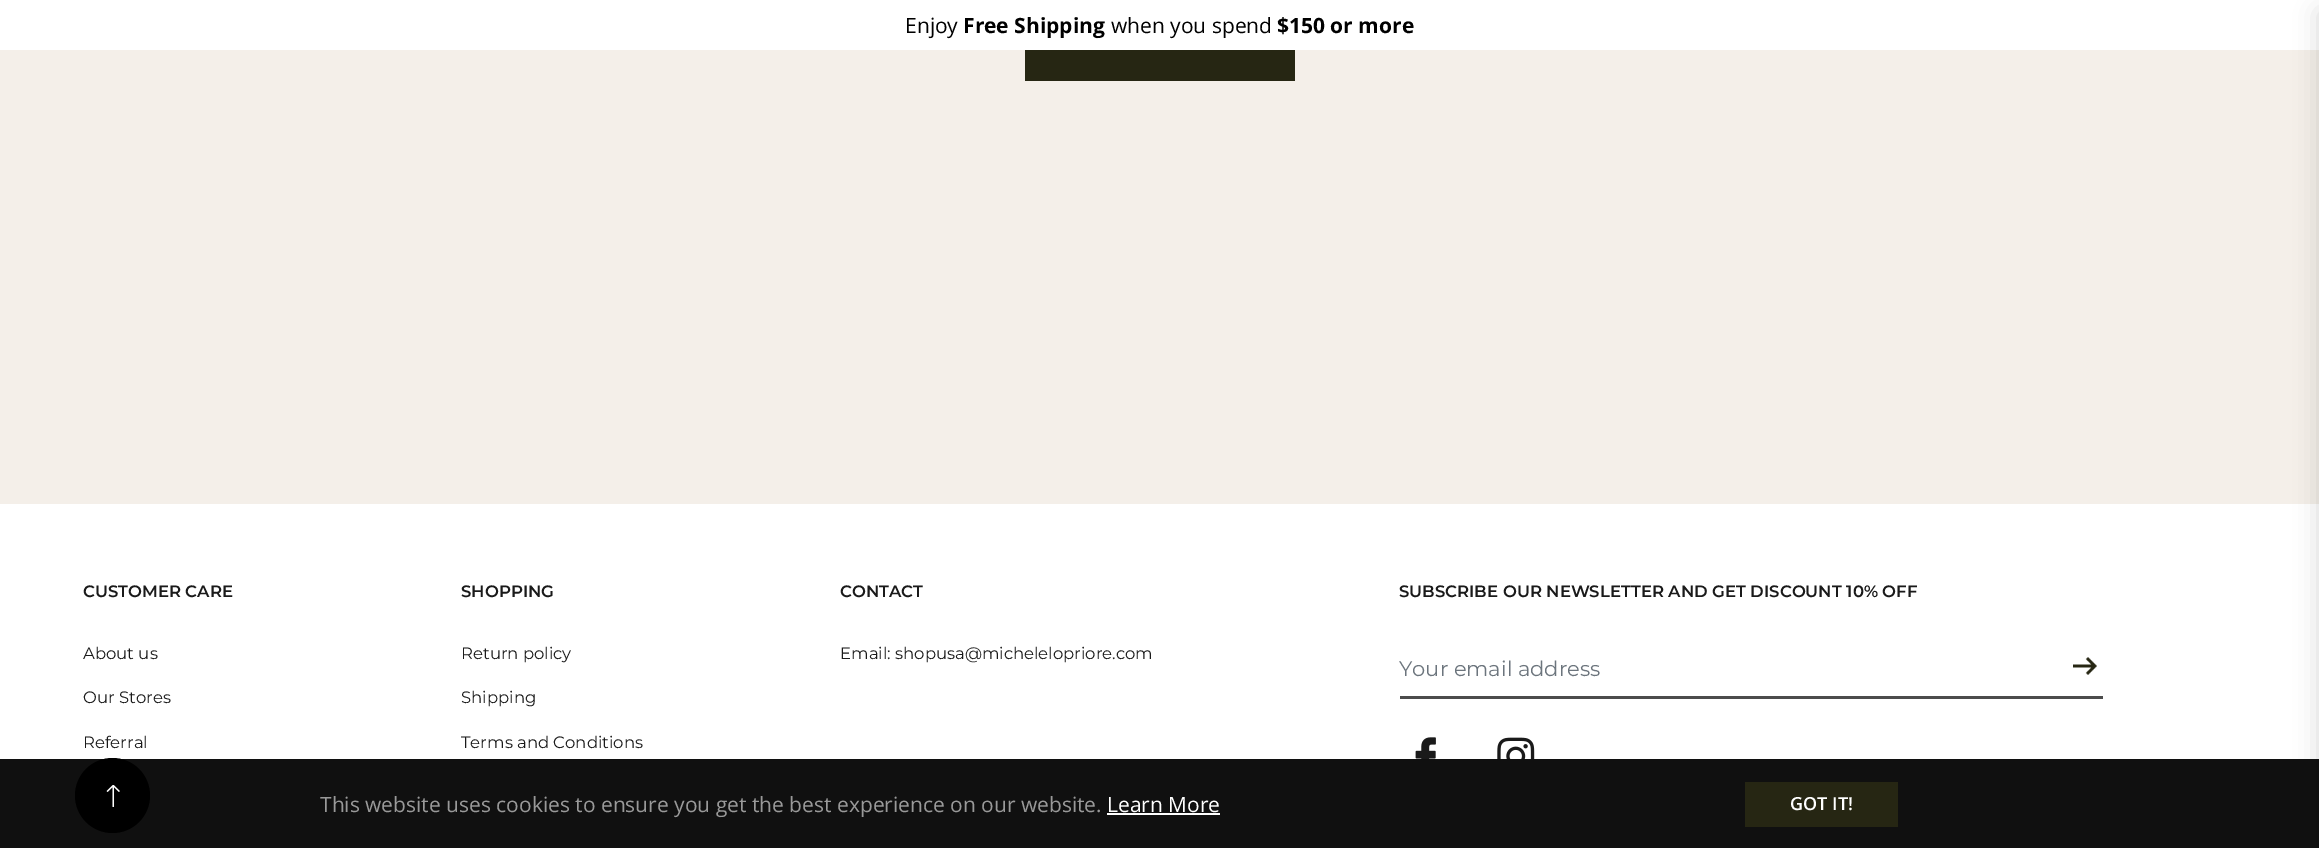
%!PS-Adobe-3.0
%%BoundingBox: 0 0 2319 848
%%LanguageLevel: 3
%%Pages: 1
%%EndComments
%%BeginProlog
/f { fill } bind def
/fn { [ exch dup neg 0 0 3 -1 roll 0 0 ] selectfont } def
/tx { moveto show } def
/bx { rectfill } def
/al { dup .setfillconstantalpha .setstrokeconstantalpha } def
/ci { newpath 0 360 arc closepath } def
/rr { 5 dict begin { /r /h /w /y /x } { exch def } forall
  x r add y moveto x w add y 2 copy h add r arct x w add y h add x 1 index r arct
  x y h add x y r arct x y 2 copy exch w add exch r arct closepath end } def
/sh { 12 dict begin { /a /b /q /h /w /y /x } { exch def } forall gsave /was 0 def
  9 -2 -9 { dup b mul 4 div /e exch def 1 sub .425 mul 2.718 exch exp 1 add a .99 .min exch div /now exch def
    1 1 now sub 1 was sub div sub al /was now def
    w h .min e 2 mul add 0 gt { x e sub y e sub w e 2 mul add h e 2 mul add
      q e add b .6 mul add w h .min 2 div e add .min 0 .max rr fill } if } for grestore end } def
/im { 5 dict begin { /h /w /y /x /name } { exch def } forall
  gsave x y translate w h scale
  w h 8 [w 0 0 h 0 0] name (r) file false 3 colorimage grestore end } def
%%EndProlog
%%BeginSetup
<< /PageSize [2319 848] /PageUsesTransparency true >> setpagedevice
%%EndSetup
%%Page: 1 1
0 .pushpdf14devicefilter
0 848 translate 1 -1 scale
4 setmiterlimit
1 setgray
0 0 2319 848 bx
/OpenSans-Regular 21 fn
0 setgray
(Enjoy) 905 33 tx
/OpenSans-Bold 21 fn
(Free Shipping) 963 33 tx
/OpenSans-Regular 21 fn
(when you spend) 1111 33 tx
/OpenSans-Bold 21 fn
($150 or more) 1277 33 tx
0.957 0.937 0.914 setrgbcolor
0 50 2319 454 bx
0.063 setgray
0 759 2319 89 bx
0 setgray
2319 12 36 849 0 12 0.15 sh
0.149 0.149 0.075 setrgbcolor
1025 50 270 31 bx
/Montserrat-SemiBold 16.5 fn
0.102 setgray
(CUSTOMER CARE) 83 597 tx
/Montserrat-Regular 16.5 fn
(About us) 83 659 tx
(Our Stores) 83 703 tx
(Referral) 83 748 tx
/Montserrat-SemiBold 16.5 fn
(SHOPPING) 461 597 tx
/Montserrat-Regular 16.5 fn
(Return policy) 461 659 tx
(Shipping) 461 703 tx
(Terms and Conditions) 461 748 tx
/Montserrat-SemiBold 16.5 fn
(CONTACT) 840 597 tx
/Montserrat-Regular 16.5 fn
(Email: shopusa@michelelopriore.com) 840 659 tx
/Montserrat-SemiBold 16.5 fn
(SUBSCRIBE OUR NEWSLETTER AND GET DISCOUNT 10% OFF) 1399 597 tx
0.298 setgray
1400 696 703 3 bx
/Montserrat-Regular 21 fn
0.424 0.459 0.49 setrgbcolor
(Your email address) 1399 676 tx
(image0.raw) 2073 657 24 18 im
(image1.raw) 1415 737 21 22 im
(image2.raw) 1497 737 38 22 im
0 setgray
112.5 795.5 37.5 ci f
(image3.raw) 106 785 14 22 im
/OpenSans-Regular 21 fn
0.6 setgray
(This website uses cookies to ensure you get the best experience on our website.) 320 812 tx
1 setgray
(Learn More) 1107 812 tx
1107 813 113 2 bx
0.149 0.149 0.075 setrgbcolor
1745 782 153 45 bx
/OpenSans-SemiBold 18 fn
1 setgray
(GOT IT!) 1790 810 tx
.poppdf14devicefilter showpage
%%EOF
